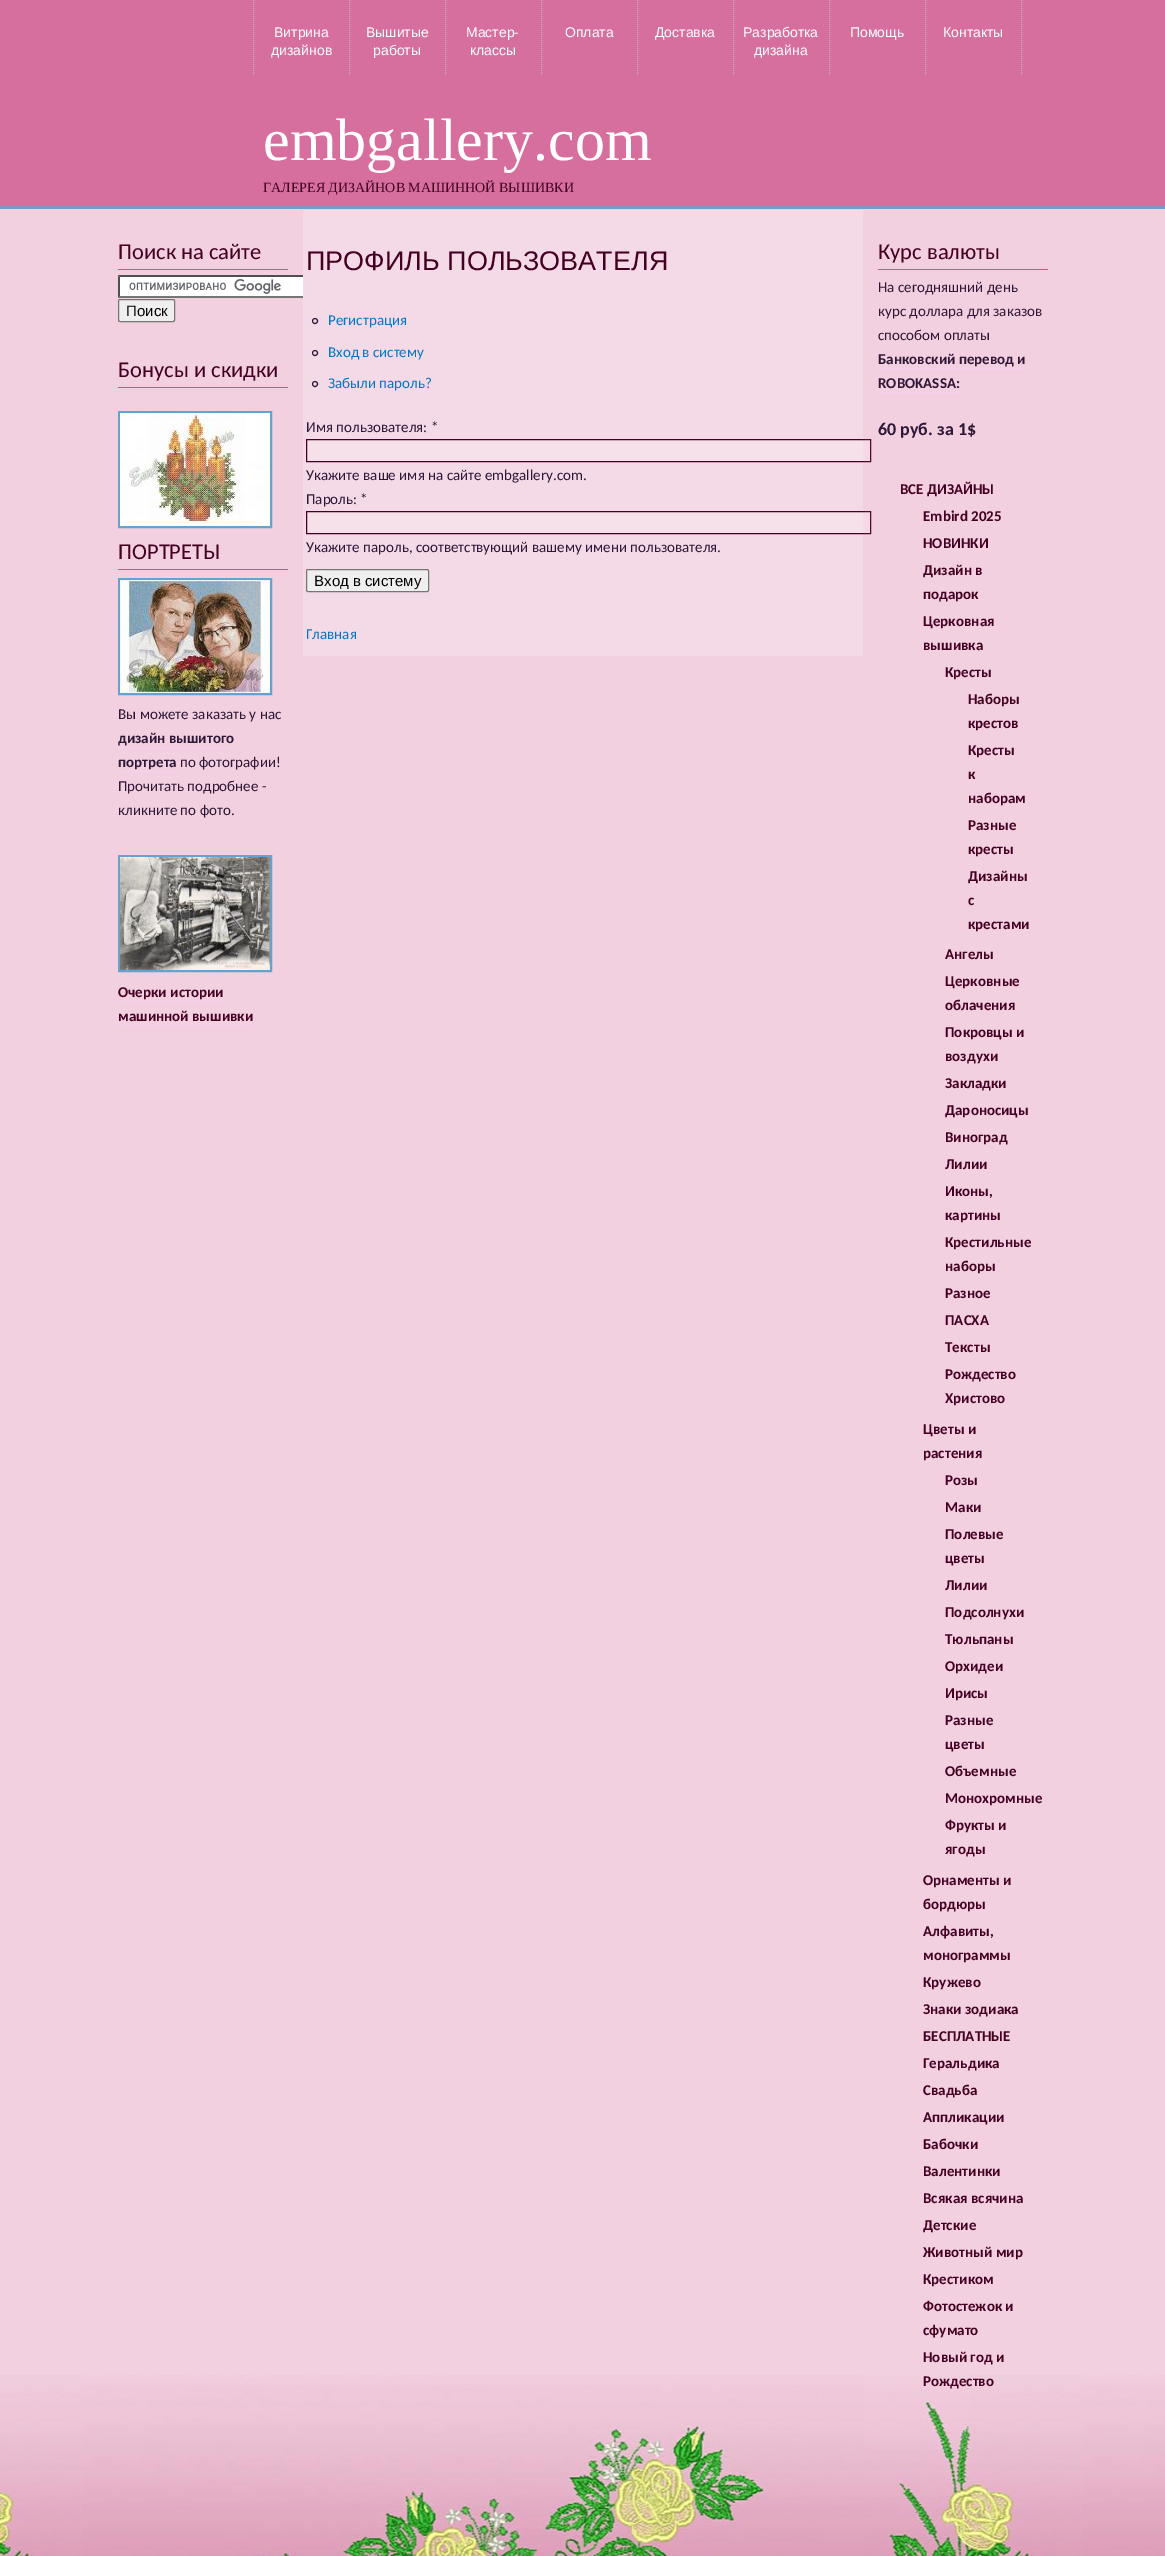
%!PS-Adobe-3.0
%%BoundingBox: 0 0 1165 2556
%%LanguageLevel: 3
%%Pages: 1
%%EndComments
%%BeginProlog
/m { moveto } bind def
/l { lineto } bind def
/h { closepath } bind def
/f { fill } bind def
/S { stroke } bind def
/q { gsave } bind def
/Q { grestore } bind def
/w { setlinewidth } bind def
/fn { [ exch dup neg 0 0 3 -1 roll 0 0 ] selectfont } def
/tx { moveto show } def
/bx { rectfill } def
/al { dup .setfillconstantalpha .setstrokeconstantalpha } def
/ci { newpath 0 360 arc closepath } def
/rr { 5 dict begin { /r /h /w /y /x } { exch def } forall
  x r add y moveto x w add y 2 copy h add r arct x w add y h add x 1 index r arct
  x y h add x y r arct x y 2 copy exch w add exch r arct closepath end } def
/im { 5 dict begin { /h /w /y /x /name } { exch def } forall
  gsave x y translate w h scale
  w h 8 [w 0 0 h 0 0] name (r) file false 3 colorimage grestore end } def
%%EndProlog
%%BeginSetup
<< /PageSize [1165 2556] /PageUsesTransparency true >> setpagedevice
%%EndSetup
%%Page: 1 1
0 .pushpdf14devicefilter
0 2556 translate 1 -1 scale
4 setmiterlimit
0.949 0.816 0.875 setrgbcolor
0 0 1165 2556 bx
0.961 0.851 0.898 setrgbcolor
863 512 7 21 bx
863 440 7 21 bx
(image0.raw) 0 0 1165 209 im
(image1.raw) 0 2375 1165 181 im
0.765 0.678 0.682 setrgbcolor
[1 1] 0 setdash
253.5 0 m 253.5 76 l S
349.5 0 m 349.5 76 l S
/LiberationSans-Regular 14 fn
1 setgray
(Витрина) 274 37 tx
(дизайнов) 271 55 tx
0.765 0.678 0.682 setrgbcolor
445.5 0 m 445.5 76 l S
1 setgray
(Вышитые) 366 37 tx
(работы) 373 55 tx
0.765 0.678 0.682 setrgbcolor
541.5 0 m 541.5 76 l S
1 setgray
(Мастер-) 466 37 tx
(классы) 470 55 tx
0.765 0.678 0.682 setrgbcolor
637.5 0 m 637.5 76 l S
1 setgray
(Оплата) 565 37 tx
0.765 0.678 0.682 setrgbcolor
733.5 0 m 733.5 76 l S
1 setgray
(Доставка) 655 37 tx
0.765 0.678 0.682 setrgbcolor
829.5 0 m 829.5 76 l S
1 setgray
(Разработка) 743 37 tx
(дизайна) 754 55 tx
0.765 0.678 0.682 setrgbcolor
925.5 0 m 925.5 76 l S
1 setgray
(Помощь) 850 37 tx
0.765 0.678 0.682 setrgbcolor
1021.5 0 m 1021.5 76 l S
1 setgray
(Контакты) 943 37 tx
/LiberationSerif-Regular 60 fn
(embgallery.com) 263 160 tx
/LiberationSerif-Regular 14 fn
0.267 0 0.133 setrgbcolor
(ГАЛЕРЕЯ ДИЗАЙНОВ МАШИННОЙ ВЫШИВКИ) 263 192 tx
0.757 0.357 0.545 setrgbcolor
118 269 170 1 bx
/Carlito-Regular 22.5 fn
0.267 0 0.133 setrgbcolor
(Поиск на сайте) 118 259 tx
1 setgray
118 275 185 23 bx
(image2.raw) 129 279 152 15 im
q
103 210 200 868 rectclip
0.31 setgray
118 275 m 325 275 l 323 277 l 120 277 l h f
0.463 setgray
325 298 m 118 298 l 120 296 l 323 296 l h f
Q
0.31 setgray
118 298 m 118 275 l 120 277 l 120 296 l h f
0.937 setgray
118.5 299.5 56 22 1.5 rr q f Q
0.463 setgray
[] 0 setdash
S
/LiberationSans-Regular 15 fn
0 setgray
(Поиск) 126 316 tx
0.757 0.357 0.545 setrgbcolor
118 387 170 1 bx
/Carlito-Regular 22.5 fn
0.267 0 0.133 setrgbcolor
(Бонусы и скидки) 118 377 tx
0.388 0.639 0.82 setrgbcolor
2 w
119 412 152 115 rectstroke
(image3.raw) 120 413 150 113 im
0.757 0.357 0.545 setrgbcolor
118 569 170 1 bx
0.267 0 0.133 setrgbcolor
(ПОРТРЕТЫ) 118 559 tx
0.388 0.639 0.82 setrgbcolor
119 579 152 115 rectstroke
(image4.raw) 120 580 150 113 im
/Carlito-Regular 15 fn
0.18 0.09 0.216 setrgbcolor
(Вы можете заказать у нас) 118 719 tx
/Carlito-Bold 15 fn
(дизайн вышитого) 118 743 tx
1 0.8 1 setrgbcolor
1 w
[1 1] 0 setdash
118 747.5 m 234 747.5 l S
0.18 0.09 0.216 setrgbcolor
(портрета) 118 767 tx
1 0.8 1 setrgbcolor
118 771.5 m 176 771.5 l S
/Carlito-Regular 15 fn
0.18 0.09 0.216 setrgbcolor
(по фотографии!) 180 767 tx
(Прочитать подробнее -) 118 791 tx
(кликните по фото.) 118 815 tx
0.388 0.639 0.82 setrgbcolor
2 w
[] 0 setdash
119 856 152 115 rectstroke
(image5.raw) 120 857 150 113 im
/Carlito-Bold 15 fn
0.267 0 0.133 setrgbcolor
(Очерки истории) 118 997 tx
1 0.8 1 setrgbcolor
1 w
[1 1] 0 setdash
118 1001.5 m 223 1001.5 l S
0.267 0 0.133 setrgbcolor
(машинной вышивки) 118 1021 tx
1 0.8 1 setrgbcolor
118 1025.5 m 253 1025.5 l S
0.957 0.851 0.902 setrgbcolor
303 210 560 446 bx
0.965 0.882 0.922 setrgbcolor
307 512 556 21 bx
307 440 556 21 bx
/LiberationSans-Regular 27 fn
0.267 0 0.133 setrgbcolor
(ПРОФИЛЬ ПОЛЬЗОВАТЕЛЯ) 306 270 tx
0.18 0.09 0.216 setrgbcolor
[] 0 setdash
315 321 2.5 ci S
/Carlito-Regular 15 fn
0.02 0.463 0.78 setrgbcolor
(Регистрация) 328 325 tx
0.18 0.09 0.216 setrgbcolor
315 353 2.5 ci S
0.02 0.463 0.78 setrgbcolor
(Вход в систему) 328 357 tx
0.18 0.09 0.216 setrgbcolor
315 384 2.5 ci S
0.02 0.463 0.78 setrgbcolor
(Забыли пароль?) 328 388 tx
0.18 0.09 0.216 setrgbcolor
(Имя пользователя: *) 306 432 tx
0.267 0 0.133 setrgbcolor
306.5 439.5 564 22 rectstroke
0.18 0.09 0.216 setrgbcolor
(Укажите ваше имя на сайте embgallery.com.) 306 480 tx
(Пароль: *) 306 504 tx
0.267 0 0.133 setrgbcolor
306.5 511.5 564 22 rectstroke
0.18 0.09 0.216 setrgbcolor
(Укажите пароль, соответствующий вашему имени пользователя.) 306 552 tx
0.937 setgray
306.5 569.5 122 22 1.5 rr q f Q
0.463 setgray
S
/LiberationSans-Regular 15 fn
0 setgray
(Вход в систему) 314 586 tx
/Carlito-Regular 15 fn
0.02 0.463 0.78 setrgbcolor
(Главная) 306 639 tx
0.05 al
1 0.847 0.922 setrgbcolor
863 439 107 2011 bx
1 al
0.757 0.357 0.545 setrgbcolor
878 269 170 1 bx
/Carlito-Regular 22.5 fn
0.267 0 0.133 setrgbcolor
(Курс валюты) 878 259 tx
/Carlito-Regular 15 fn
0.18 0.09 0.216 setrgbcolor
(На сегодняшний день) 878 292 tx
(курс доллара для заказов) 878 316 tx
(способом оплаты) 878 340 tx
/Carlito-Bold 15 fn
(Банковский перевод и) 878 364 tx
1 0.8 1 setrgbcolor
[1 1] 0 setdash
878 368.5 m 1025 368.5 l S
0.18 0.09 0.216 setrgbcolor
(ROBOKASSA:) 878 388 tx
1 0.8 1 setrgbcolor
878 392.5 m 959 392.5 l S
/Carlito-Bold 18 fn
0.18 0.09 0.216 setrgbcolor
(60 руб. за 1$) 878 435 tx
/Carlito-Bold 15 fn
0.267 0 0.133 setrgbcolor
(ВСЕ ДИЗАЙНЫ) 900 494 tx
(Embird 2025) 923 521 tx
(НОВИНКИ) 923 548 tx
(Дизайн в) 923 575 tx
(подарок) 923 599 tx
(Церковная) 923 626 tx
(вышивка) 923 650 tx
(Кресты) 945 677 tx
(Наборы) 968 704 tx
(крестов) 968 728 tx
(Кресты) 968 755 tx
(к) 968 779 tx
(наборам) 968 803 tx
(Разные) 968 830 tx
(кресты) 968 854 tx
(Дизайны) 968 881 tx
(с) 968 905 tx
(крестами) 968 929 tx
(Ангелы) 945 959 tx
(Церковные) 945 986 tx
(облачения) 945 1010 tx
(Покровцы и) 945 1037 tx
(воздухи) 945 1061 tx
(Закладки) 945 1088 tx
(Дароносицы) 945 1115 tx
(Виноград) 945 1142 tx
(Лилии) 945 1169 tx
(Иконы,) 945 1196 tx
(картины) 945 1220 tx
(Крестильные) 945 1247 tx
(наборы) 945 1271 tx
(Разное) 945 1298 tx
(ПАСХА) 945 1325 tx
(Тексты) 945 1352 tx
(Рождество) 945 1379 tx
(Христово) 945 1403 tx
(Цветы и) 923 1434 tx
(растения) 923 1458 tx
(Розы) 945 1485 tx
(Маки) 945 1512 tx
(Полевые) 945 1539 tx
(цветы) 945 1563 tx
(Лилии) 945 1590 tx
(Подсолнухи) 945 1617 tx
(Тюльпаны) 945 1644 tx
(Орхидеи) 945 1671 tx
(Ирисы) 945 1698 tx
(Разные) 945 1725 tx
(цветы) 945 1749 tx
(Объемные) 945 1776 tx
(Монохромные) 945 1803 tx
(Фрукты и) 945 1830 tx
(ягоды) 945 1854 tx
(Орнаменты и) 923 1885 tx
(бордюры) 923 1909 tx
(Алфавиты,) 923 1936 tx
(монограммы) 923 1960 tx
(Кружево) 923 1987 tx
(Знаки зодиака) 923 2014 tx
(БЕСПЛАТНЫЕ) 923 2041 tx
(Геральдика) 923 2068 tx
(Свадьба) 923 2095 tx
(Аппликации) 923 2122 tx
(Бабочки) 923 2149 tx
(Валентинки) 923 2176 tx
(Всякая всячина) 923 2203 tx
(Детские) 923 2230 tx
(Животный мир) 923 2257 tx
(Крестиком) 923 2284 tx
(Фотостежок и) 923 2311 tx
(сфумато) 923 2335 tx
(Новый год и) 923 2362 tx
(Рождество) 923 2386 tx
.poppdf14devicefilter showpage
%%EOF
